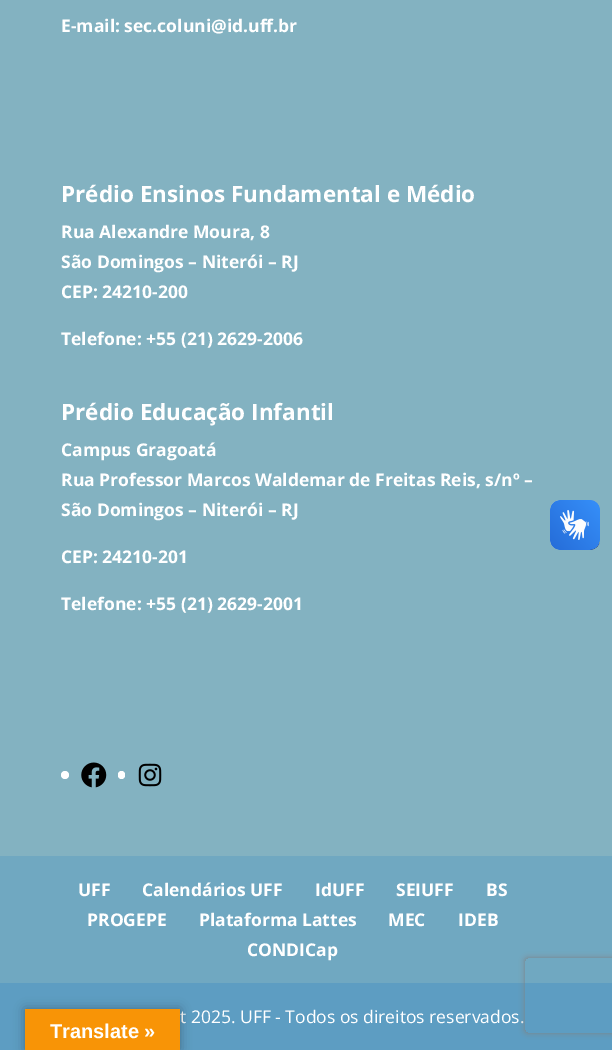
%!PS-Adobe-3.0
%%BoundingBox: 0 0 612 1050
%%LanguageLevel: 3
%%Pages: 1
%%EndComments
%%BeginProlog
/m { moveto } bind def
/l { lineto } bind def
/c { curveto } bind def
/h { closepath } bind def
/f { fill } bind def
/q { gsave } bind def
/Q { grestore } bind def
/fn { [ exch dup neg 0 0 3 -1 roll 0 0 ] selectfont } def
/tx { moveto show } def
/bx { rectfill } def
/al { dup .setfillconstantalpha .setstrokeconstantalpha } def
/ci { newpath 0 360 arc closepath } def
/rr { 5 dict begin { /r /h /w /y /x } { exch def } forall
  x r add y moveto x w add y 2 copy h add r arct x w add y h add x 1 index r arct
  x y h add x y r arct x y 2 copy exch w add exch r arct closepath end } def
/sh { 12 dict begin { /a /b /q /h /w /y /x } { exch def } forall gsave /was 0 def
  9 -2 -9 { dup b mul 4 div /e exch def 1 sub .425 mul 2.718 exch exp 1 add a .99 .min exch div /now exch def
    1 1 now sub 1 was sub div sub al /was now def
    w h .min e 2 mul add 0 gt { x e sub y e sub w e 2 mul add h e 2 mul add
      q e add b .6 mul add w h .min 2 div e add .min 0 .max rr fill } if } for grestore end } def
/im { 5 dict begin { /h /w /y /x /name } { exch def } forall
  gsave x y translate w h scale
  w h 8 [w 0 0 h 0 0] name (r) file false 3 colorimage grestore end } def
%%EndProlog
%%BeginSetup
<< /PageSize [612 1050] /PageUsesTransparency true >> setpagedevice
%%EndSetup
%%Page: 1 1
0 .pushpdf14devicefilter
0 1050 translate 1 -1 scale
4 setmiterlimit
0.514 0.698 0.757 setrgbcolor
0 0 612 1050 bx
/OpenSans-Bold 17.5 fn
1 setgray
(E-mail: sec.coluni@id.uff.br) 61 32 tx
/OpenSans-Bold 22.5 fn
(Prédio Ensinos Fundamental e Médio) 61 202 tx
/OpenSans-Bold 17.5 fn
(Rua Alexandre Moura, 8) 61 238 tx
(São Domingos – Niterói – RJ) 61 268 tx
(CEP: 24210-200) 61 298 tx
(Telefone: +55 \(21\) 2629-2006) 61 345 tx
/OpenSans-Bold 22.5 fn
(Prédio Educação Infantil) 61 420 tx
/OpenSans-Bold 17.5 fn
(Campus Gragoatá) 61 456 tx
(Rua Professor Marcos Waldemar de Freitas Reis, s/nº –) 61 486 tx
(São Domingos – Niterói – RJ) 61 516 tx
(CEP: 24210-201) 61 563 tx
(Telefone: +55 \(21\) 2629-2001) 61 610 tx
65 775 4 ci f
(image0.raw) 81 762 26 26 im
118 771 7 8 3.5 rr f
(image1.raw) 138 763 24 24 im
0.439 0.659 0.757 setrgbcolor
0 856 612 127 bx
1 setgray
(UFF) 78 896 tx
(Calendários UFF) 142 896 tx
(IdUFF) 315 896 tx
(SEIUFF) 396 896 tx
(BS) 486 896 tx
(PROGEPE) 87 926 tx
(Plataforma Lattes) 199 926 tx
(MEC) 388 926 tx
(IDEB) 458 926 tx
(CONDICap) 247 956 tx
0.365 0.616 0.761 setrgbcolor
0 983 612 67 bx
/OpenSans-Regular 17.5 fn
1 setgray
(t 2025. UFF - Todos os direitos reservados.) 180 1023 tx
(image2.raw) 550 500 50 50 im
(image3.raw) 550 500 50 50 im
0 setgray
25 1009 155 41 0 5.5 0.3 sh
0.973 0.58 0.024 setrgbcolor
25 1009 155 41 bx
/LiberationSans-Bold 20 fn
1 setgray
(Translate ») 50 1038 tx
q
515 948 m 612 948 l 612 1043 l 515 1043 l h 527.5 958 m 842.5 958 l 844 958 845 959 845 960.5 c 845 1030.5 l 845 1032 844 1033 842.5 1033 c 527.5 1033 l 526 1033 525 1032 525 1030.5 c 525 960.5 l 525 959 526 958 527.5 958 c h eoclip newpath
0.502 setgray
525 958 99 75 2.5 3 1 sh
Q
.poppdf14devicefilter showpage
%%EOF
